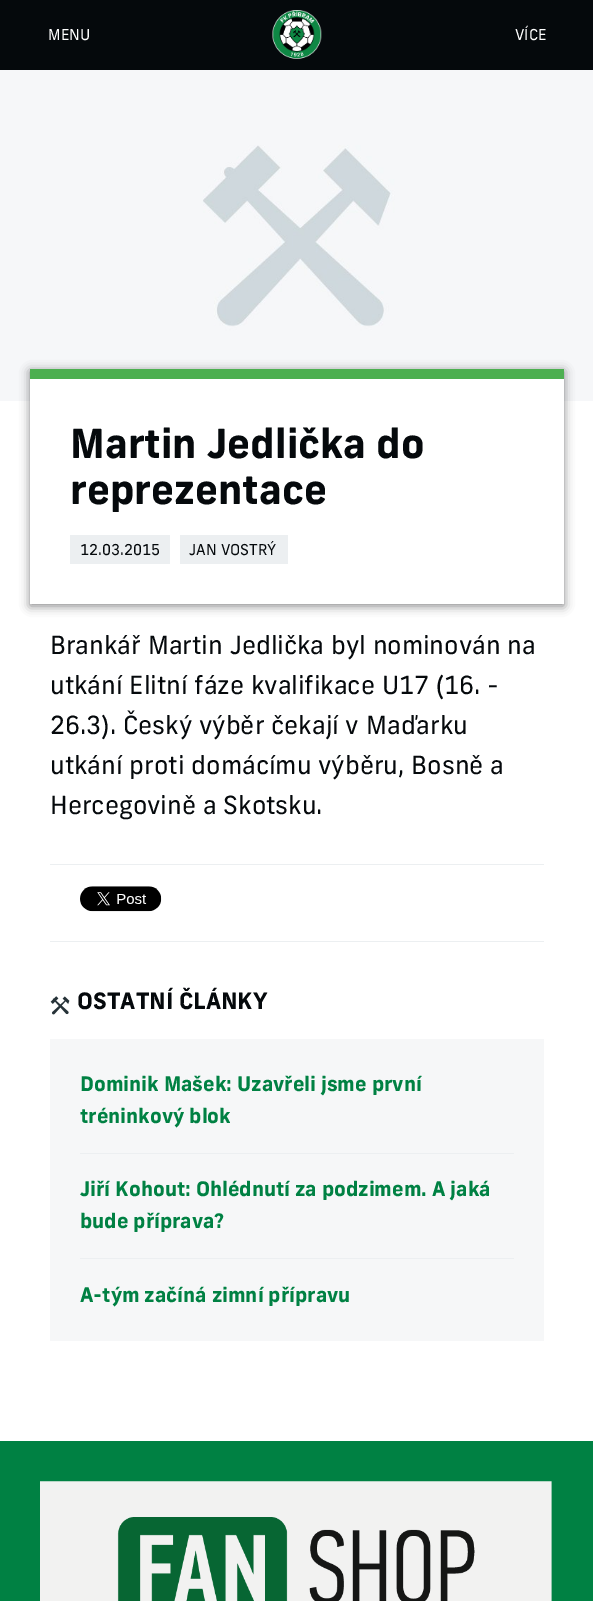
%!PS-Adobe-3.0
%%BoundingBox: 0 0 593 1601
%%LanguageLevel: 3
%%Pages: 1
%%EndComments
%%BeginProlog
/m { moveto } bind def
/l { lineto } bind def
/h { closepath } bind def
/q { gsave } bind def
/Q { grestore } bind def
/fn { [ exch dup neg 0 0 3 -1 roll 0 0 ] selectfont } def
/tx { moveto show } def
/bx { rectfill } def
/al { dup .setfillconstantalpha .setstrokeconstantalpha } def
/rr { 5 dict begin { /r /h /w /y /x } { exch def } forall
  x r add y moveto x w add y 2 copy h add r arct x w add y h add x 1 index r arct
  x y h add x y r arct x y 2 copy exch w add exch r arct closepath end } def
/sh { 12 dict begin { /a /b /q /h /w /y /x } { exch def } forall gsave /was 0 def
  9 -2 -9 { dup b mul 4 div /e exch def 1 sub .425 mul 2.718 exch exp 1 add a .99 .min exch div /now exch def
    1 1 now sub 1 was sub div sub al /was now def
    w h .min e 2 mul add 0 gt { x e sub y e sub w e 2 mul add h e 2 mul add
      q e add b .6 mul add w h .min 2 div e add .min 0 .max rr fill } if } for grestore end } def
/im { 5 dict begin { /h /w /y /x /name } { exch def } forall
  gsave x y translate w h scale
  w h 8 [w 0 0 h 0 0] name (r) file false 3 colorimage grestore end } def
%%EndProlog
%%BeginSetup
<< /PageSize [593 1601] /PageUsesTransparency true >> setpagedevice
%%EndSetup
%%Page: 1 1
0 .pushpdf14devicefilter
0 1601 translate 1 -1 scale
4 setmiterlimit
1 setgray
0 0 593 1601 bx
0.02 0.035 0.047 setrgbcolor
0 0 593 70 bx
/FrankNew-Regular 15 fn
1 setgray
(MENU) 48 40 tx
(image0.raw) 272 10 50 49 im
(VÍCE) 515 40 tx
(image1.raw) 0 70 593 331 im
30 379 534 22 bx
q
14 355 m 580 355 l 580 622 l 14 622 l h 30 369 m 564 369 l 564 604 l 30 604 l h eoclip newpath
0.02 0.035 0.047 setrgbcolor
30 371 534 235 0 5 0.5 sh
Q
0.298 0.686 0.314 setrgbcolor
30 369 534 10 bx
/FrankNew-Bold 40 fn
0.02 0.035 0.047 setrgbcolor
(Martin Jedlička do) 70 458 tx
(reprezentace) 70 504 tx
0.925 0.937 0.945 setrgbcolor
70 535 100 29 bx
/FrankNew-Regular 15 fn
0.02 0.035 0.047 setrgbcolor
(12.03.2015) 80 555 tx
0.925 0.937 0.945 setrgbcolor
180 535 108 29 bx
0.02 0.035 0.047 setrgbcolor
(JAN VOSTRÝ) 189 555 tx
/FrankNew-Regular 25 fn
(Brankář Martin Jedlička byl nominován na) 50 654 tx
(utkání Elitní fáze kvalifikace U17 \(16. -) 50 694 tx
(26.3\). Český výběr čekají v Maďarku) 50 734 tx
(utkání proti domácímu výběru, Bosně a) 50 774 tx
(Hercegovině a Skotsku.) 50 814 tx
0.925 0.937 0.945 setrgbcolor
50 864 494 1 bx
50 941 494 1 bx
(image2.raw) 80 886 82 26 im
(image3.raw) 50 996 20 19 im
/FrankNew-Bold 22.5 fn
0.02 0.035 0.047 setrgbcolor
(OSTATNÍ ČLÁNKY) 77 1009 tx
0.965 0.969 0.973 setrgbcolor
50 1039 494 302 bx
0.925 0.937 0.945 setrgbcolor
80 1153 434 1 bx
/FrankNew-Bold 20 fn
0 0.506 0.263 setrgbcolor
(Dominik Mašek: Uzavřeli jsme první) 80 1091 tx
(tréninkový blok) 80 1123 tx
0.925 0.937 0.945 setrgbcolor
80 1258 434 1 bx
0 0.506 0.263 setrgbcolor
(Jiří Kohout: Ohlédnutí za podzimem. A jaká) 80 1196 tx
(bude příprava?) 80 1228 tx
(A-tým začíná zimní přípravu) 80 1302 tx
0 1441 593 160 bx
(image4.raw) 40 1481 512 120 im
.poppdf14devicefilter showpage
%%EOF
